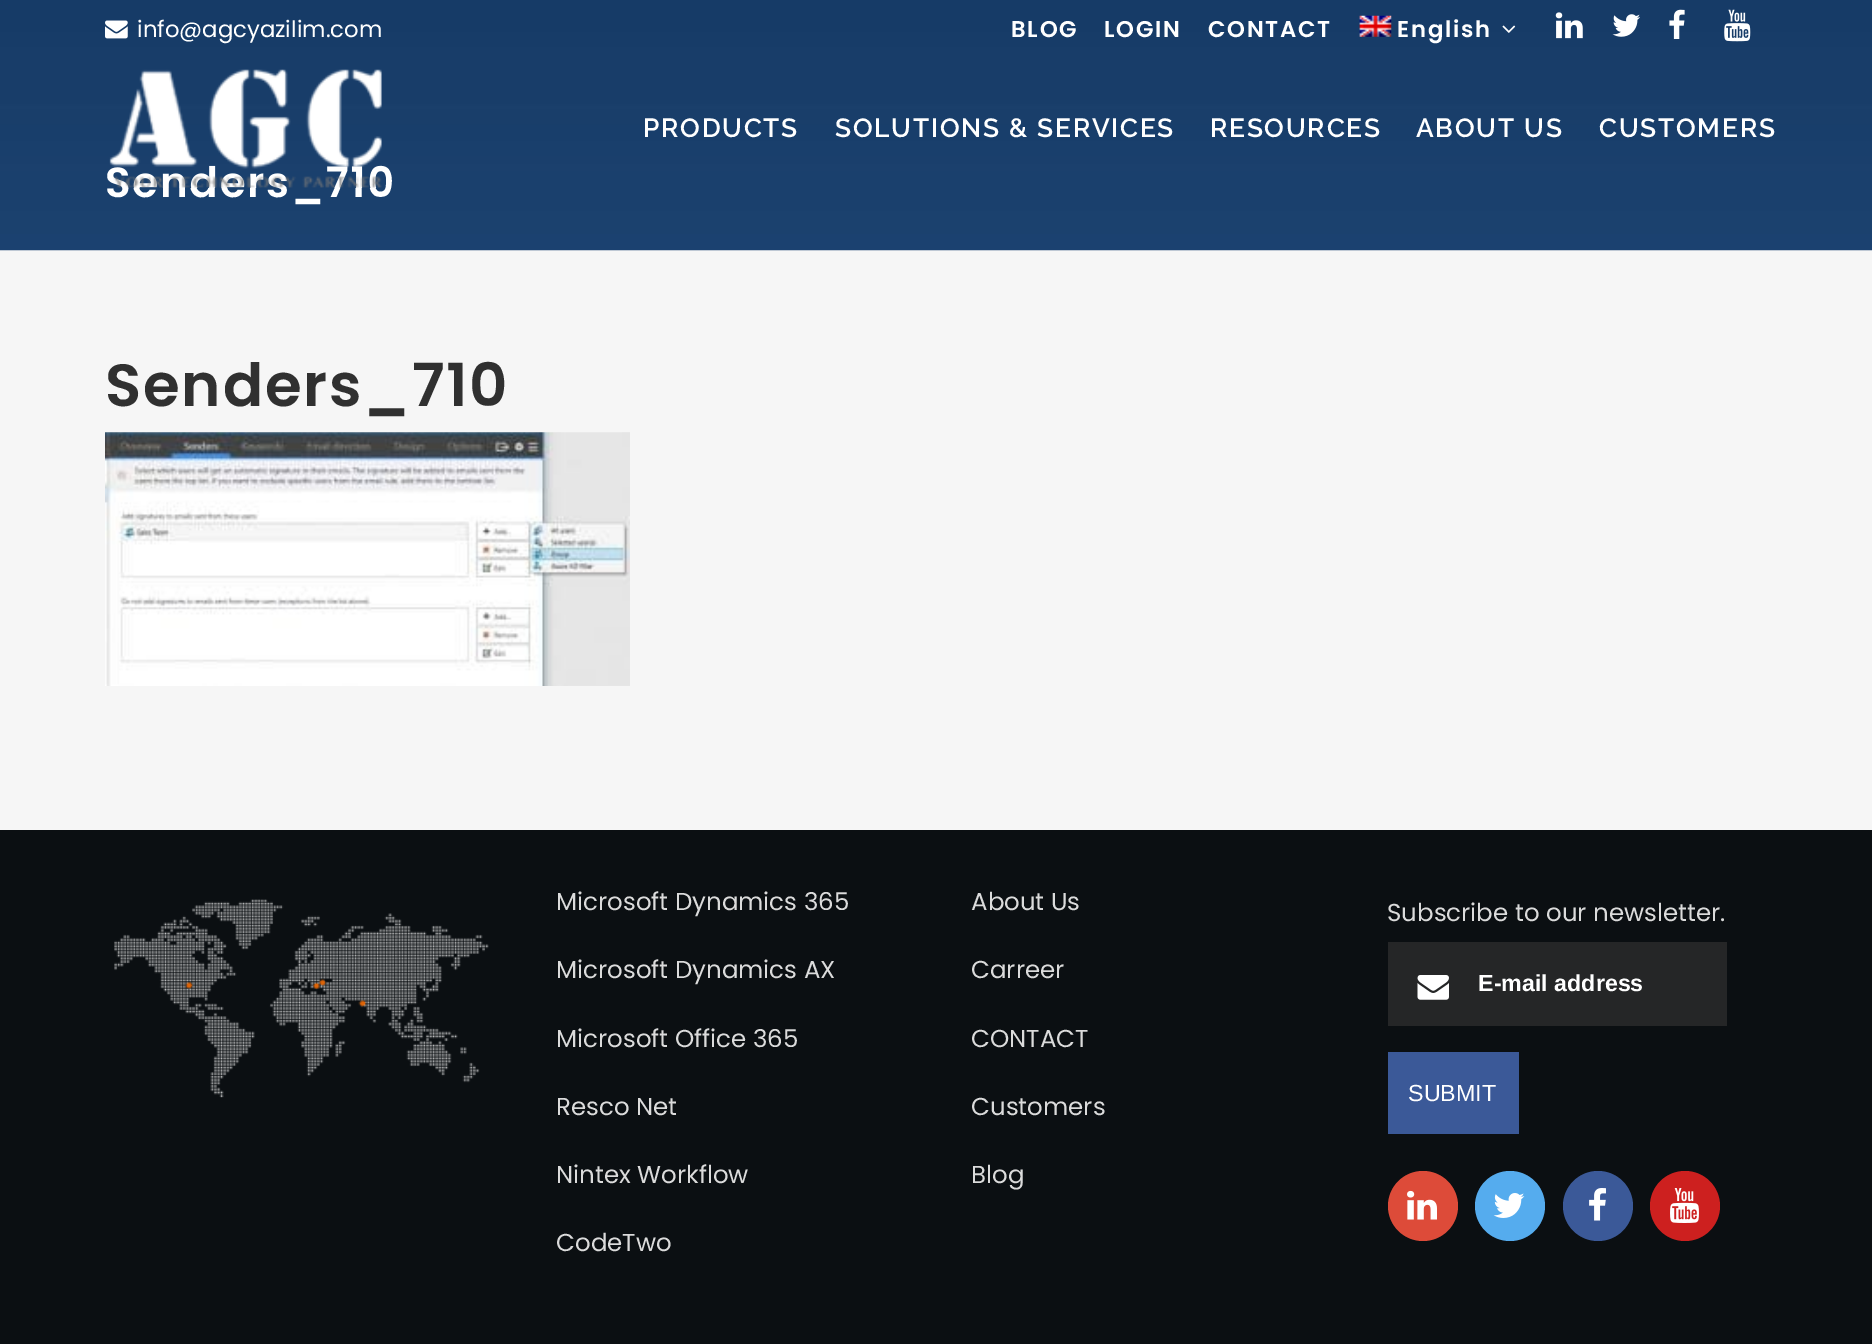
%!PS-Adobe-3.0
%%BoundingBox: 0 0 1872 1344
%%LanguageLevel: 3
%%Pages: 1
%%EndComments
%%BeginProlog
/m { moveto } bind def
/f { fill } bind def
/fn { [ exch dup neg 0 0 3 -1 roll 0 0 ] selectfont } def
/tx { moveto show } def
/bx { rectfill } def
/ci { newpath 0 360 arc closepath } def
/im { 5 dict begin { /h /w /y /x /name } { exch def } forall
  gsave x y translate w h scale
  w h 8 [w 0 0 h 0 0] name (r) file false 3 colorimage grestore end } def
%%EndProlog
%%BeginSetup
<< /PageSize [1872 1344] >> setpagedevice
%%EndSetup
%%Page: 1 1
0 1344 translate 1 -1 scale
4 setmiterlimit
0.965 setgray
0 0 1872 1344 bx
(image8.raw) 0 0 1872 251 im
(image0.raw) 105 20 23 19 im
/Poppins-Regular 22.75 fn
1 setgray
(info@agcyazilim.com) 137 37 tx
/Poppins-SemiBold 22.75 fn
1011 37 m 1.75 0 (BLOG) ashow
1104 37 m 1.75 0 (LOGIN) ashow
1208 37 m 1.75 0 (CONTACT) ashow
(image1.raw) 1359 15 33 22 im
1397 37 m 1.75 0 (English) ashow
(image2.raw) 1502 25 14 8 im
(image3.raw) 1555 12 28 27 im
(image4.raw) 1612 14 28 23 im
(image5.raw) 1669 9 16 30 im
(image6.raw) 1724 9 27 33 im
/Poppins-SemiBold 42 fn
105 197 m 1.75 0 (Senders_710) ashow
(image7.raw) 109 69 273 119 im
/Raleway-SemiBold 26.25 fn
643 137 m 1.75 0 (PRODUCTS) ashow
835 137 m 1.75 0 (SOLUTIONS & SERVICES) ashow
1210 137 m 1.75 0 (RESOURCES) ashow
1416 137 m 1.75 0 (ABOUT US) ashow
1599 137 m 1.75 0 (CUSTOMERS) ashow
/Poppins-SemiBold 59.5 fn
0.188 setgray
105 406 m 1.75 0 (Senders_710) ashow
(image9.raw) 105 432 525 254 im
0.043 0.059 0.071 setrgbcolor
0 830 1872 514 bx
(image10.raw) 114 899 375 199 im
/Poppins-Regular 24.5 fn
0.859 setgray
(Microsoft Dynamics 365) 556 910 tx
(Microsoft Dynamics AX) 556 978 tx
(Microsoft Office 365) 556 1047 tx
(Resco Net) 556 1115 tx
(Nintex Workflow) 556 1183 tx
(CodeTwo) 556 1251 tx
(About Us) 971 910 tx
(Carreer) 971 978 tx
(CONTACT) 971 1047 tx
(Customers) 971 1115 tx
(Blog) 971 1183 tx
(Subscribe to our newsletter.) 1387 921 tx
0.145 0.149 0.153 setrgbcolor
1388 942 339 84 bx
(image11.raw) 1417 975 32 25 im
/LiberationSans-Bold 23.25 fn
1 setgray
(E-mail address) 1478 991 tx
0.231 0.349 0.596 setrgbcolor
1388 1052 131 82 bx
/LiberationSans-Regular 23.25 fn
1 setgray
(SUBMIT) 1408 1101 tx
0.867 0.294 0.224 setrgbcolor
1423 1206 35 ci f
(image12.raw) 1407 1190 30 30 im
0.333 0.675 0.933 setrgbcolor
1510 1206 35 ci f
(image13.raw) 1493 1193 32 25 im
0.231 0.349 0.596 setrgbcolor
1598 1206 35 ci f
(image14.raw) 1589 1188 17 33 im
0.804 0.125 0.122 setrgbcolor
1685 1206 35 ci f
(image15.raw) 1670 1188 29 35 im
showpage
%%EOF
